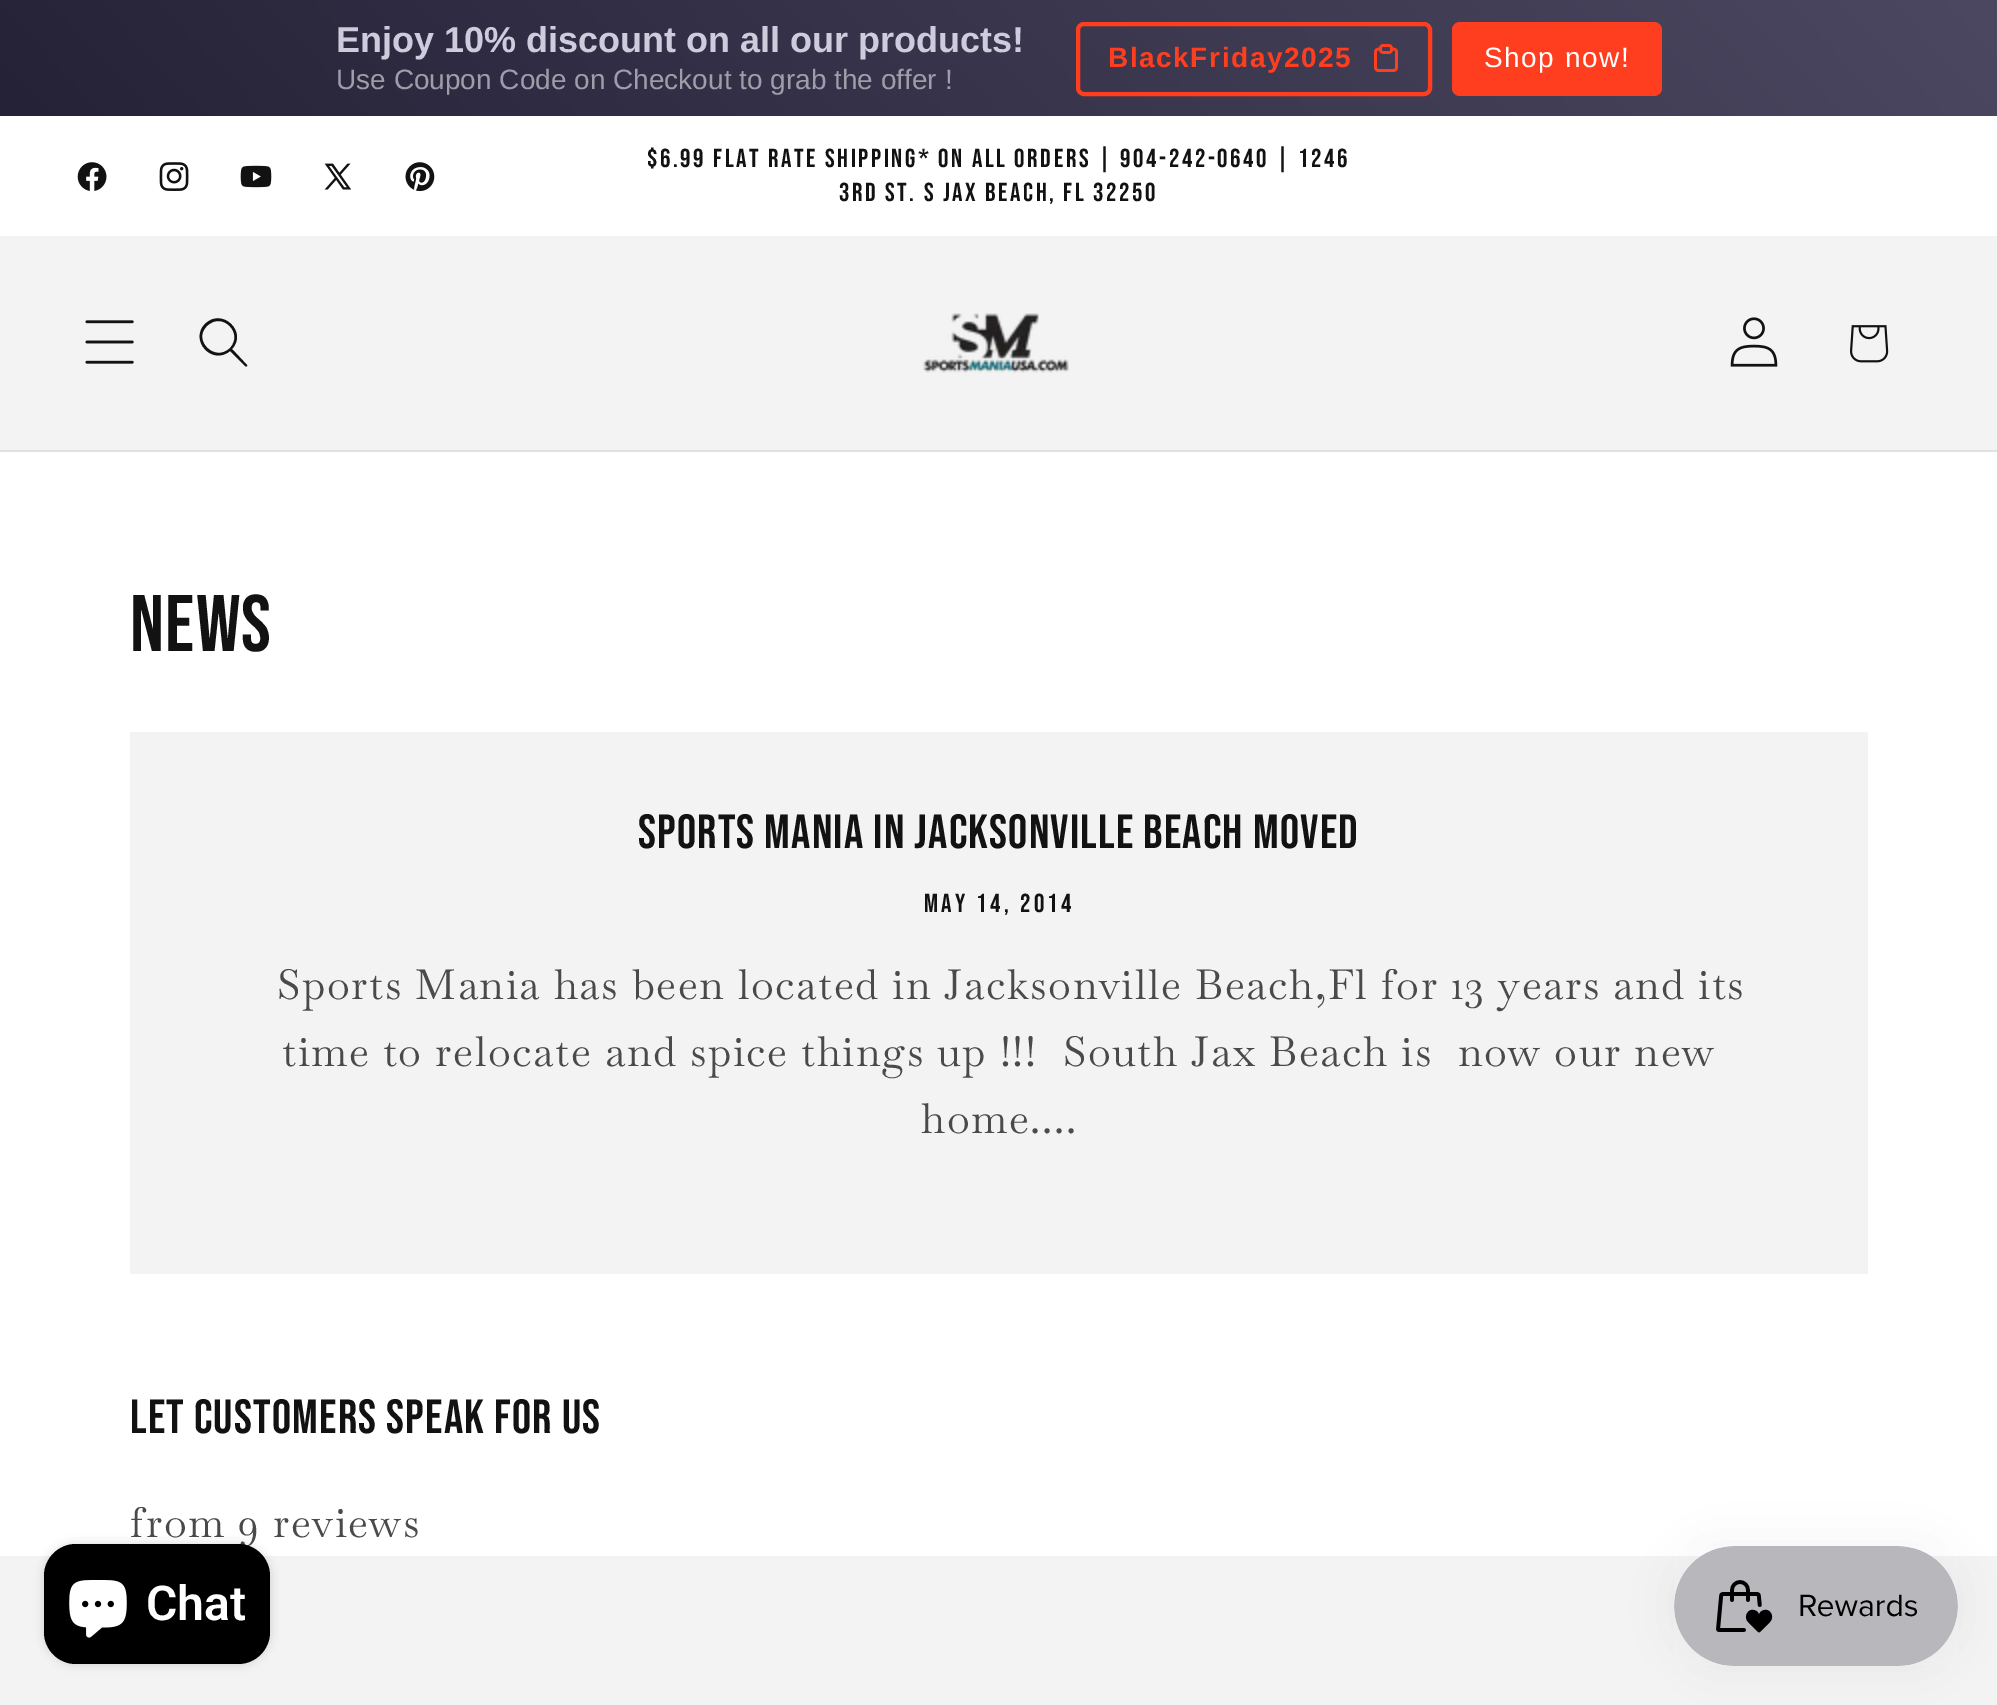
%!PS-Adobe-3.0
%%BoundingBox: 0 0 1997 1705
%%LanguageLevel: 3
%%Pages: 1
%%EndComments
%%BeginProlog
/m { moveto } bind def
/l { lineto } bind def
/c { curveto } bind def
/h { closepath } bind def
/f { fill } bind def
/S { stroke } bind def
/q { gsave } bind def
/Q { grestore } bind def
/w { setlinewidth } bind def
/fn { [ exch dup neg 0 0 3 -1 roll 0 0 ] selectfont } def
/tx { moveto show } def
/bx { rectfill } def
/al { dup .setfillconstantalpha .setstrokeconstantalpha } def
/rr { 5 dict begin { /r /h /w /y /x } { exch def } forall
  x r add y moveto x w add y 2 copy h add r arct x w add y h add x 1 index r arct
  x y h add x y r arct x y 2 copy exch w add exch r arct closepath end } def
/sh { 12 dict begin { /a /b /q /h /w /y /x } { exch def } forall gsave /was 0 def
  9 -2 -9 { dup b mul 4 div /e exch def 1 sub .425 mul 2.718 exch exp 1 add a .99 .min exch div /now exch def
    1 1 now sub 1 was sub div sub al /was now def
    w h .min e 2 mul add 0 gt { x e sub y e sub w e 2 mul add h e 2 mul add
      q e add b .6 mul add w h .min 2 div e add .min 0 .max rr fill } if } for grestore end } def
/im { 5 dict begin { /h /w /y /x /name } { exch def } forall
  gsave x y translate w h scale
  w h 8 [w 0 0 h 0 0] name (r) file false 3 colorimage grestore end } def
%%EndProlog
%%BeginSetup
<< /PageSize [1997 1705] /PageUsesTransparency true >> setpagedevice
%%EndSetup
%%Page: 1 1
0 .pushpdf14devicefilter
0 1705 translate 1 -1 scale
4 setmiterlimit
1 setgray
0 0 1997 1705 bx
q 0 0 m 1997 0 l 1997 116 l 0 116 l h clip newpath
<< /ShadingType 2 /ColorSpace /DeviceRGB /Coords [436 583 1562 -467] /Extend [true true] /Function << /FunctionType 2 /Domain [0 1] /C0 [0.145 0.133 0.216] /C1 [0.298 0.282 0.38] /N 1 >> >> shfill Q
/LiberationSans-Bold 36 fn
0.808 0.8 0.863 setrgbcolor
(Enjoy 10% discount on all our products!) 336 52 tx
/LiberationSans-Regular 28 fn
0.624 0.616 0.667 setrgbcolor
(Use Coupon Code on Checkout to grab the offer !) 336 89 tx
1 0.243 0.125 setrgbcolor
4 w
1078 24 352 70 6 rr S
/LiberationSans-Bold 28 fn
1108 67 m 1.55 0 (BlackFriday2025) ashow
(image0.raw) 1374 44 24 28 im
1452 22 210 74 8 rr f
/LiberationSans-Regular 28 fn
1 setgray
1484 67 m 1.55 0 (Shop now!) ashow
(image1.raw) 77 162 30 29 im
(image2.raw) 159 162 30 29 im
(image3.raw) 240 165 32 23 im
(image4.raw) 324 163 28 27 im
(image5.raw) 405 162 30 30 im
/BebasNeue-Regular 26 fn
0.071 setgray
647 167 m 2.6 0 ($6.99 Flat Rate Shipping* on all orders | 904-242-0640 | 1246) ashow
839 201 m 2.6 0 (3rd ST. S Jax Beach, FL 32250) ashow
0.953 setgray
0 236 1997 214 bx
0.882 setgray
0 450 1997 2 bx
(image6.raw) 85 320 49 44 im
0.071 setgray
230 348 m 215 363 192 340 207 326 c 222 311 244 333 230 348 c 230 351 m 212 366 189 340 205 324 c 222 307 248 332 232 349 c 247 365 l 248 366 246 367 245 366 c h eofill
(image7.raw) 923 313 146 60 im
(image8.raw) 1730 317 48 50 im
(image9.raw) 1850 325 39 38 im
/BebasNeue-Regular 80 fn
130 651 m 1.2 0 (News) ashow
0.953 setgray
130 732 1738 542 bx
/BebasNeue-Regular 48 fn
0.071 setgray
638 848 m 1.2 0 (Sports Mania In Jacksonville Beach Moved) ashow
/BebasNeue-Regular 26 fn
924 912 m 3.4 0 (MAY 14, 2014) ashow
/Baskervville-Regular 41.6 fn
0.29 setgray
277 999 m 1.55 0 (Sports Mania has been located in Jacksonville Beach,Fl for 13 years and its) ashow
282 1066 m 1.55 0 (time to relocate and spice things up !!!  South Jax Beach is  now our new) ashow
921 1133 m 1.55 0 (home....) ashow
/BebasNeue-Regular 48 fn
0.071 setgray
130 1433 m 1.2 0 (Let customers speak for us) ashow
/Baskervville-Regular 41.6 fn
0.29 setgray
130 1537 m 1.55 0 (from 9 reviews) ashow
0.953 setgray
0 1556 1997 149 bx
0 setgray
1674 1546 284 120 60 25 0.05 sh
(image10.raw) 1674 1546 284 120 im
44 1544 226 120 32 5 0.15 sh
44 1544 226 120 32 rr f
(image11.raw) 69 1580 58 58 im
/Roboto-SemiBold 48 fn
1 setgray
(Chat) 146 1620 tx
.poppdf14devicefilter showpage
%%EOF
